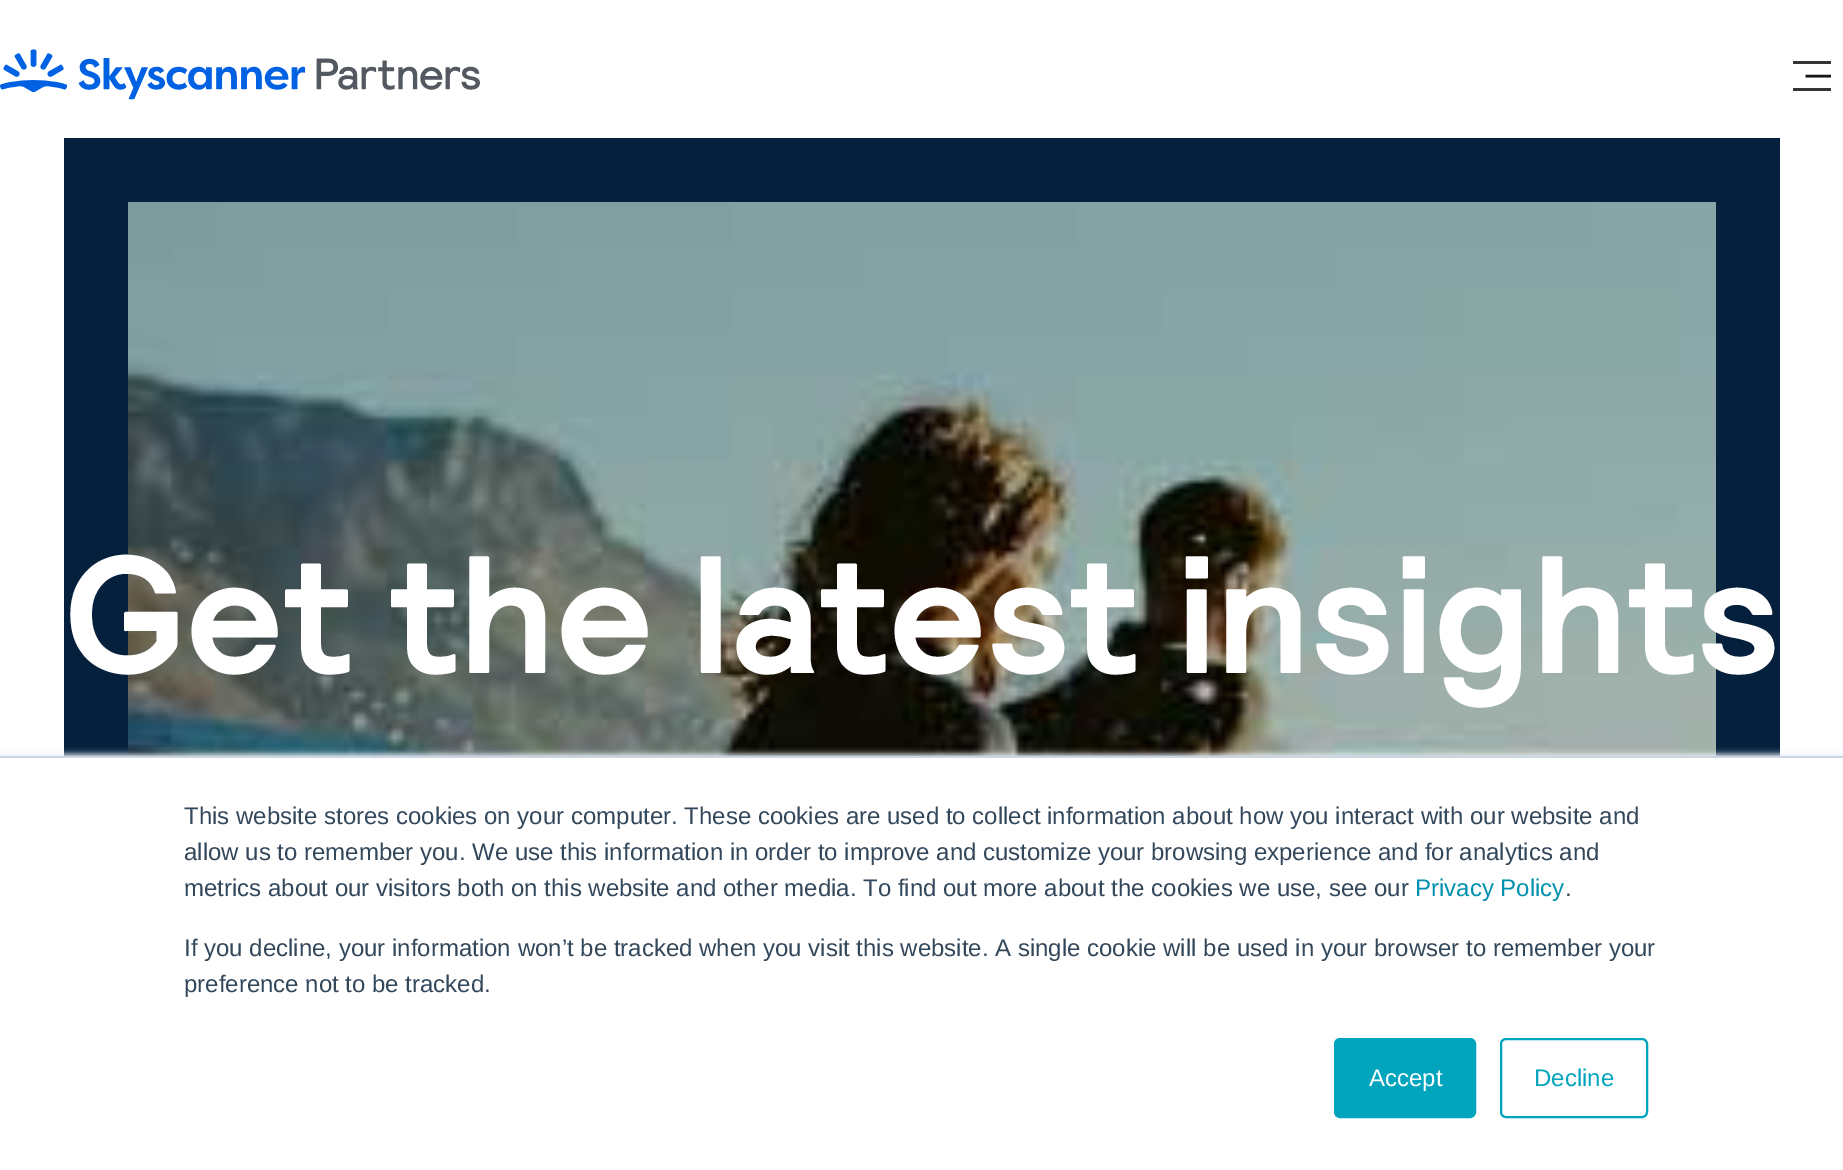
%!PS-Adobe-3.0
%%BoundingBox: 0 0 1843 1170
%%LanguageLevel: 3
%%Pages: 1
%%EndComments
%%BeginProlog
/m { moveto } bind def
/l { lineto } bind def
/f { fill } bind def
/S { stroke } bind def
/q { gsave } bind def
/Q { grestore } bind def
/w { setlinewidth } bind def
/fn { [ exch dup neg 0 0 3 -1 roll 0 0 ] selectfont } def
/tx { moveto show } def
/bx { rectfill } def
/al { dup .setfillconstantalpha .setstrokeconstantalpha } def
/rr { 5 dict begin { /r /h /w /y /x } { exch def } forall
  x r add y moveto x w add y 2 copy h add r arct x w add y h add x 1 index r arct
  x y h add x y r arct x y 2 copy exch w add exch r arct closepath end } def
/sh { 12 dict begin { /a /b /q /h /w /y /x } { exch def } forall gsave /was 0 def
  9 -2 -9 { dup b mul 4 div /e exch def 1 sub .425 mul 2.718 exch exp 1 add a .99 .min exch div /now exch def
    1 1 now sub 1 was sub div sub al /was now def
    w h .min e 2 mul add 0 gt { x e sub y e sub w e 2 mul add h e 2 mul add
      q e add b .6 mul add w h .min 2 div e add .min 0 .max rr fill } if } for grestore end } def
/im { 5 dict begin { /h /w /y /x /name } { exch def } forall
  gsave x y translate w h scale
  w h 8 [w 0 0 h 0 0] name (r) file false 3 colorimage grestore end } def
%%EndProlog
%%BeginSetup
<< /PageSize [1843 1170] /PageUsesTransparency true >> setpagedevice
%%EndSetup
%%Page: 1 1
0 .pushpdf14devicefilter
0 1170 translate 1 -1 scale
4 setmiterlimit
1 setgray
0 0 1843 1170 bx
(image0.raw) 0 49 480 51 im
0.208 setgray
1793 61 38 3 bx
0.086 setgray
2.6 w
1805.5 76 m 1831 76 l S
0.208 setgray
1793 88 38 3 bx
0.02 0.125 0.235 setrgbcolor
64 138 1716 618 bx
(image1.raw) 128 202 1588 554 im
/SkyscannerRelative-Bold 167 fn
1 setgray
(Get the latest insights) 64 673 tx
0.918 0.941 0.965 setrgbcolor
0 754 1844 414 0 3 1 sh
1 setgray
0 758 1843 412 bx
0.796 0.839 0.886 setrgbcolor
0 756 1843 2 bx
/LiberationSans-Regular 24 fn
0.2 0.278 0.357 setrgbcolor
(This website stores cookies on your computer. These cookies are used to collect information about how you interact with our website and) 184 824 tx
(allow us to remember you. We use this information in order to improve and customize your browsing experience and for analytics and) 184 860 tx
(metrics about our visitors both on this website and other media. To find out more about the cookies we use, see our) 184 896 tx
0 0.569 0.682 setrgbcolor
(Privacy Policy) 1415 896 tx
0.2 0.278 0.357 setrgbcolor
(.) 1565 896 tx
(If you decline, your information won’t be tracked when you visit this website. A single cookie will be used in your browser to remember your) 184 956 tx
(preference not to be tracked.) 184 992 tx
0 0.643 0.741 setrgbcolor
1335 1039 140 78 5 rr q f Q
2 w
S
1 setgray
(Accept) 1369 1086 tx
0 0.643 0.741 setrgbcolor
1501 1039 146 78 5 rr S
(Decline) 1534 1086 tx
.poppdf14devicefilter showpage
%%EOF
